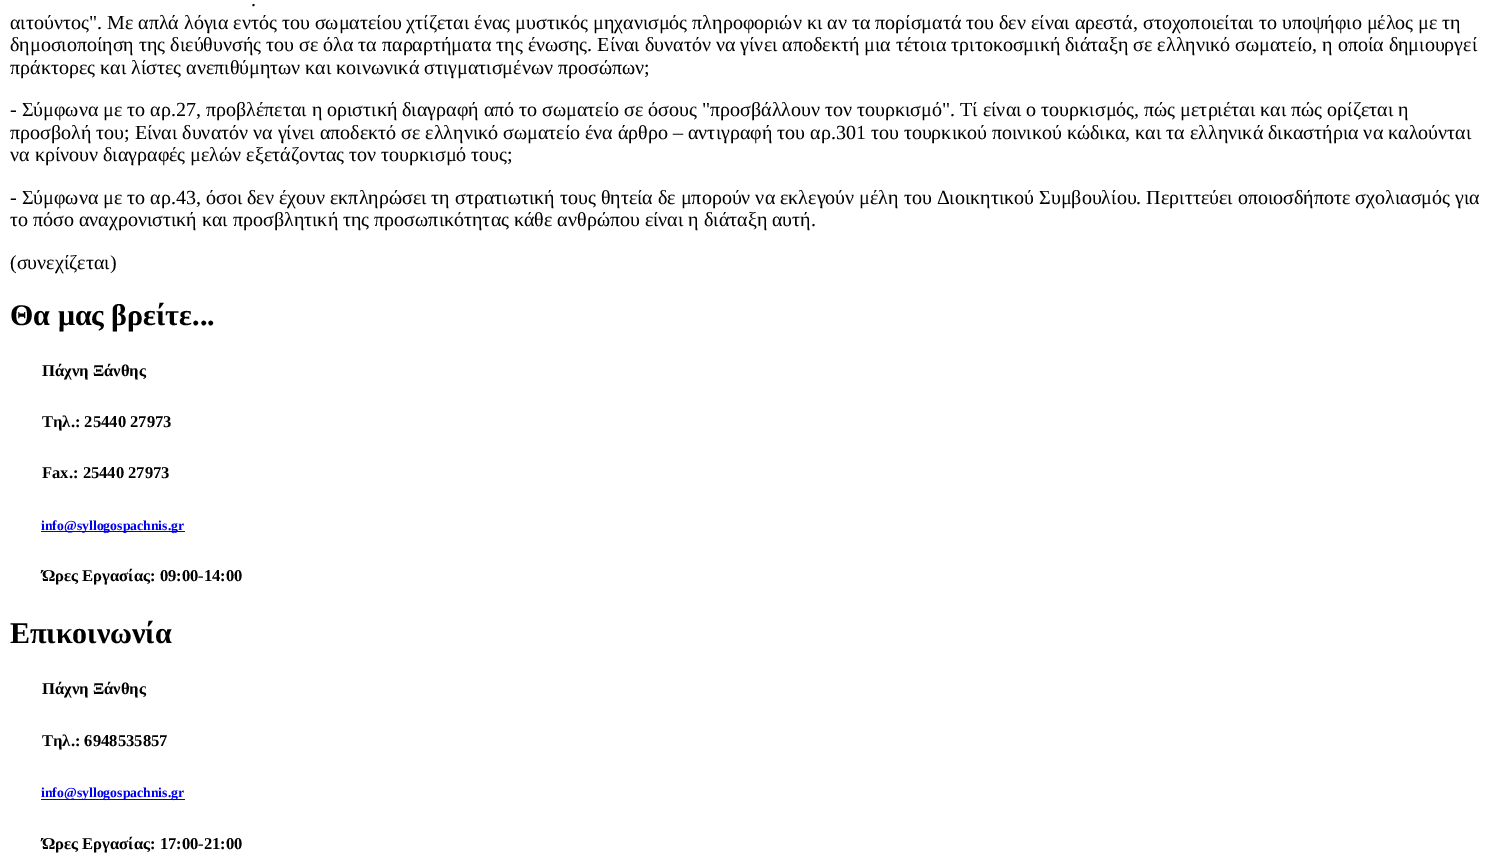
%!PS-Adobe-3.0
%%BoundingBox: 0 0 1489 857
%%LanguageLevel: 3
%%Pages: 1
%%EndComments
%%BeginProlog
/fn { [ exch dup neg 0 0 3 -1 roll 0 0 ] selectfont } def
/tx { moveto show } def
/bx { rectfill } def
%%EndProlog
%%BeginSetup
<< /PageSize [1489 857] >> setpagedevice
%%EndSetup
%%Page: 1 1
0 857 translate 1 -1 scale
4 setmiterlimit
1 setgray
0 0 1489 857 bx
/LiberationSerif-Regular 20 fn
0 setgray
(.) 251 6 tx
(αιτούντος". Με απλά λόγια εντός του σωματείου χτίζεται ένας μυστικός μηχανισμός πληροφοριών κι αν τα πορίσματά του δεν είναι αρεστά, στοχοποιείται το υποψήφιο μέλος με τη) 10 29 tx
(δημοσιοποίηση της διεύθυνσής του σε όλα τα παραρτήματα της ένωσης. Είναι δυνατόν να γίνει αποδεκτή μια τέτοια τριτοκοσμική διάταξη σε ελληνικό σωματείο, η οποία δημιουργεί) 10 51 tx
(πράκτορες και λίστες ανεπιθύμητων και κοινωνικά στιγματισμένων προσώπων;) 10 74 tx
(- Σύμφωνα με το αρ.27, προβλέπεται η οριστική διαγραφή από το σωματείο σε όσους "προσβάλλουν τον τουρκισμό". Τί είναι ο τουρκισμός, πώς μετριέται και πώς ορίζεται η) 10 116 tx
(προσβολή του; Είναι δυνατόν να γίνει αποδεκτό σε ελληνικό σωματείο ένα άρθρο – αντιγραφή του αρ.301 του τουρκικού ποινικού κώδικα, και τα ελληνικά δικαστήρια να καλούνται) 10 139 tx
(να κρίνουν διαγραφές μελών εξετάζοντας τον τουρκισμό τους;) 10 161 tx
(- Σύμφωνα με το αρ.43, όσοι δεν έχουν εκπληρώσει τη στρατιωτική τους θητεία δε μπορούν να εκλεγούν μέλη του Διοικητικού Συμβουλίου. Περιττεύει οποιοσδήποτε σχολιασμός για) 10 204 tx
(το πόσο αναχρονιστική και προσβλητική της προσωπικότητας κάθε ανθρώπου είναι η διάταξη αυτή.) 10 226 tx
(\(συνεχίζεται\)) 10 269 tx
/LiberationSerif-Bold 30 fn
(Θα μας βρείτε...) 10 325 tx
/LiberationSerif-Bold 16.6 fn
(Πάχνη Ξάνθης) 42 376 tx
(Τηλ.: 25440 27973) 42 427 tx
(Fax.: 25440 27973) 42 478 tx
0 0 0.933 setrgbcolor
41 531 144 1 bx
/LiberationSerif-Bold 13.75 fn
(info@syllogospachnis.gr) 41 530 tx
/LiberationSerif-Bold 16.6 fn
0 setgray
(Ώρες Εργασίας: 09:00-14:00) 42 581 tx
/LiberationSerif-Bold 30 fn
(Επικοινωνία) 10 643 tx
/LiberationSerif-Bold 16.6 fn
(Πάχνη Ξάνθης) 42 694 tx
(Τηλ.: 6948535857) 42 746 tx
0 0 0.933 setrgbcolor
41 799 144 1 bx
/LiberationSerif-Bold 13.75 fn
(info@syllogospachnis.gr) 41 797 tx
/LiberationSerif-Bold 16.6 fn
0 setgray
(Ώρες Εργασίας: 17:00-21:00) 42 849 tx
showpage
%%EOF
